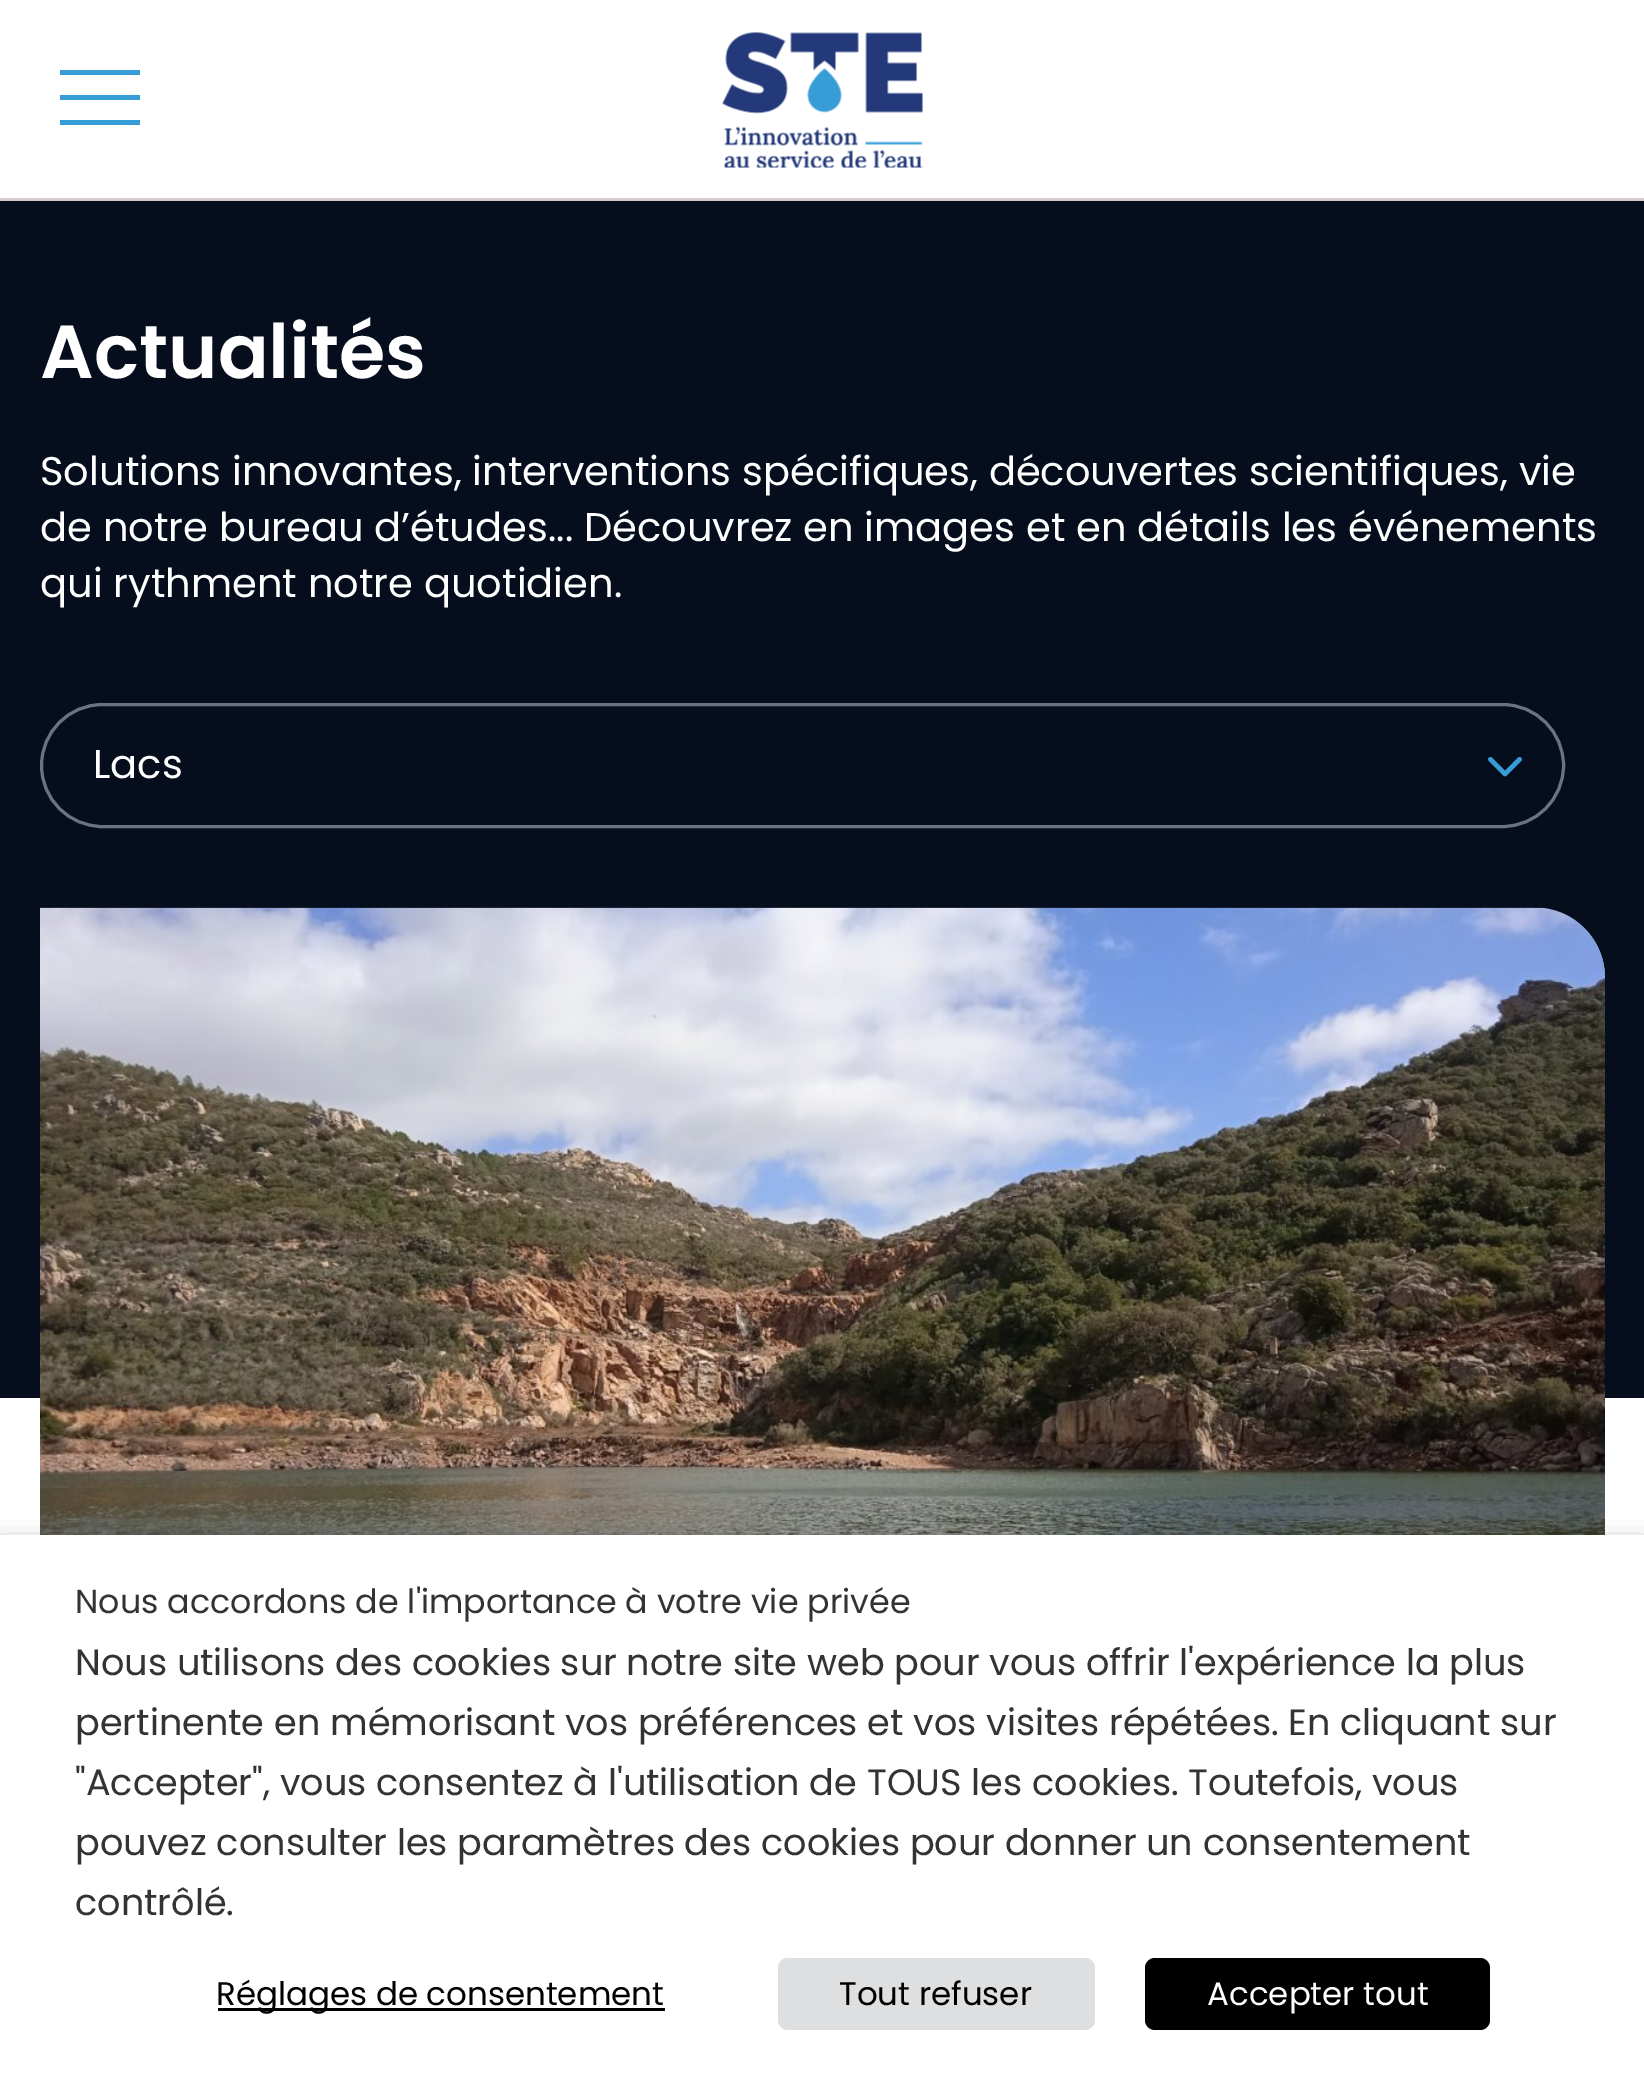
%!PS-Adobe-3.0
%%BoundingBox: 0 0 1644 2092
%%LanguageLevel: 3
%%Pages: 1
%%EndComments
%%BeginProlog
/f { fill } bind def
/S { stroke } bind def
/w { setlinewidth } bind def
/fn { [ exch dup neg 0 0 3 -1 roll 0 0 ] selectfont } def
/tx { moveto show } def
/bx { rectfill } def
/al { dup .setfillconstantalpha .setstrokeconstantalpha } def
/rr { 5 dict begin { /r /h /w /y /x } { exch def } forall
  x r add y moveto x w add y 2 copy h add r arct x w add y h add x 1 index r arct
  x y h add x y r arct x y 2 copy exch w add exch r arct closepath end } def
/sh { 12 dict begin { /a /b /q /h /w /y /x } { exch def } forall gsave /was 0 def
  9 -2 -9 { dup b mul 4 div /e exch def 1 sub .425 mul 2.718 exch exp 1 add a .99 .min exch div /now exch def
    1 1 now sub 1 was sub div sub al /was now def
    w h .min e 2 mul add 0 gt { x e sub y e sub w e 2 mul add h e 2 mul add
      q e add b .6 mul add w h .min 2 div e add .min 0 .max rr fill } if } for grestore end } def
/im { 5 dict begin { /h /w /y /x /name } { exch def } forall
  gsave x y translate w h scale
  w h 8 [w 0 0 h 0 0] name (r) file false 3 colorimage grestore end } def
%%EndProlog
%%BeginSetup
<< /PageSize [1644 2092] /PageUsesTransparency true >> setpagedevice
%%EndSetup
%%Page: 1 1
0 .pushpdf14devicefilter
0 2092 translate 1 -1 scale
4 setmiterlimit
1 setgray
0 0 1644 2092 bx
0.212 0.616 0.843 setrgbcolor
60 70 80 5 bx
60 95 80 5 bx
60 120 80 5 bx
(image0.raw) 722 32 201 136 im
0.831 0.8 0.8 setrgbcolor
0 198 1644 3 bx
0.024 0.055 0.114 setrgbcolor
0 201 1644 1197 bx
/Poppins-SemiBold 75 fn
1 setgray
(Actualités) 40 378 tx
/Poppins-Regular 40 fn
(Solutions innovantes, interventions spécifiques, découvertes scientifiques, vie) 40 485 tx
(de notre bureau d’études... Découvrez en images et en détails les événements) 40 541 tx
(qui rythment notre quotidien.) 40 597 tx
(image1.raw) 1488 757 34 20 im
0.42 0.447 0.502 setrgbcolor
3 w
41.5 704.5 1522 122 61 rr S
1 setgray
(Lacs) 93 778 tx
(image2.raw) 40 907 1565 628 im
0 setgray
0 1548 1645 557 0 12.5 0.5 sh
1 setgray
0 1535 1644 557 bx
/Poppins-Regular 33.3 fn
0.2 setgray
(Nous accordons de l'importance à votre vie privée) 75 1613 tx
/Poppins-Regular 36.65 fn
(Nous utilisons des cookies sur notre site web pour vous offrir l'expérience la plus) 75 1675 tx
(pertinente en mémorisant vos préférences et vos visites répétées. En cliquant sur) 75 1735 tx
("Accepter", vous consentez à l'utilisation de TOUS les cookies. Toutefois, vous) 75 1795 tx
(pouvez consulter les paramètres des cookies pour donner un consentement) 75 1855 tx
(contrôlé.) 75 1915 tx
0 setgray
218 2008 447 3 bx
/Poppins-Regular 32.5 fn
(Réglages de consentement) 216 2005 tx
0.871 0.875 0.878 setrgbcolor
778 1958 317 72 10 rr f
0 setgray
(Tout refuser) 839 2005 tx
1145 1958 345 72 10 rr f
1 setgray
(Accepter tout) 1207 2005 tx
.poppdf14devicefilter showpage
%%EOF
